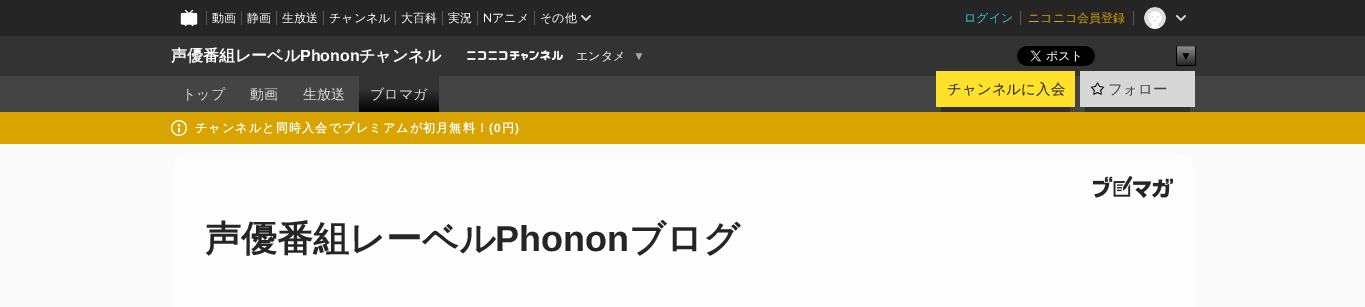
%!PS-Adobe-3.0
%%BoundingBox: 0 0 1365 307
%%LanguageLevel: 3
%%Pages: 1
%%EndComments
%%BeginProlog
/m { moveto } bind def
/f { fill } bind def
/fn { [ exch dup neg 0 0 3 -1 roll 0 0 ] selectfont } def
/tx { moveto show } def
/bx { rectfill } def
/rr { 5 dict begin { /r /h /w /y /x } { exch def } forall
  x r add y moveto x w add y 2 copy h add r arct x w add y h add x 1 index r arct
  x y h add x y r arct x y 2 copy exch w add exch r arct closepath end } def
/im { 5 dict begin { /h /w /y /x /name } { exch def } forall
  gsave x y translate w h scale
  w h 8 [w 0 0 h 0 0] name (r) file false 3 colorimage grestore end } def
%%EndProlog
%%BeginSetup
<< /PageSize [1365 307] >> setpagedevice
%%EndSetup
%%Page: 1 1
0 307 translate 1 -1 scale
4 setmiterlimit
0.98 setgray
0 0 1365 307 bx
0.145 setgray
0 0 1365 36 bx
(image0.raw) 180 9 18 18 im
0.333 setgray
206 11 1 14 bx
/WenQuanYiZenHei-Medium 12 fn
1 setgray
(動画) 212 22 tx
0.333 setgray
241 11 1 14 bx
1 setgray
(静画) 247 22 tx
0.333 setgray
276 11 1 14 bx
1 setgray
(生放送) 282 22 tx
0.333 setgray
323 11 1 14 bx
1 setgray
(チャンネル) 329 22 tx
0.333 setgray
395 11 1 14 bx
1 setgray
(大百科) 401 22 tx
0.333 setgray
442 11 1 14 bx
1 setgray
(実況) 448 22 tx
0.333 setgray
477 11 1 14 bx
/Lato-Regular 12 fn
1 setgray
(N) 483 22 tx
/WenQuanYiZenHei-Medium 12 fn
(アニメ) 492 22 tx
0.333 setgray
534 11 1 14 bx
1 setgray
(その他) 540 22 tx
(image1.raw) 581 15 10 6 im
0.224 0.769 0.757 setrgbcolor
(ログイン) 964 22 tx
0.333 setgray
1020 11 1 14 bx
0.851 0.639 0 setrgbcolor
(ニコニコ会員登録) 1028 22 tx
0.333 setgray
1133 11 1 14 bx
(image2.raw) 1144 7 22 22 im
(image1.raw) 1176 15 10 6 im
0.2 setgray
0 36 1365 40 bx
/WenQuanYiZenHei-Bold 16 fn
1 setgray
(声優番組レーベル) 171 61 tx
/LiberationSans-Bold 16 fn
(Phonon) 300 61 tx
/WenQuanYiZenHei-Bold 16 fn
(チャンネル) 359 61 tx
(image3.raw) 467 50 96 11 im
/WenQuanYiZenHei-Medium 12 fn
(エンタメ) 576 60 tx
/LiberationSans-Regular 12 fn
0.667 setgray
(▼) 633 60 tx
(image4.raw) 1017 46 78 20 im
0.533 setgray
1177 47 18 18 bx
(image5.raw) 1177 48 18 17 im
0.4 setgray
1176 46 20 1 bx
0 setgray
1195 46 1 20 bx
1176 65 20 1 bx
1176 46 1 20 bx
(▼) 1180 60 tx
0.267 setgray
0 76 1365 36 bx
/WenQuanYiZenHei-Medium 14 fn
0.878 setgray
(トップ) 182 99 tx
(動画) 250 99 tx
(生放送) 303 99 tx
0.2 setgray
359 76 80 36 bx
(image6.raw) 359 90 80 22 im
0.878 setgray
(ブロマガ) 370 99 tx
0.188 setgray
941 107 129 5 bx
1 0.878 0.169 setrgbcolor
936 71 139 36 bx
/WenQuanYiZenHei-Medium 14.5 fn
0.145 setgray
(チャンネルに入会) 947 94 tx
0.188 setgray
1085 107 105 5 bx
0.843 setgray
1080 71 115 36 bx
(image7.raw) 1090 82 15 13 im
0.267 setgray
(フォロー) 1108 94 tx
0.851 0.639 0 setrgbcolor
0 112 1365 32 bx
(image8.raw) 171 120 16 16 im
/WenQuanYiZenHei-Bold 12 fn
1 setgray
195 132 m 1.2 0 (チャンネルと同時入会でプレミアムが初月無料！) ashow
/LiberationSans-Bold 12 fn
489 132 m 1.2 0 (\(0) ashow
/WenQuanYiZenHei-Bold 12 fn
502 132 m 1.2 0 (円) ashow
/LiberationSans-Bold 12 fn
515 132 m 1.2 0 (\)) ashow
0.992 setgray
171 154 1024 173 20 rr f
(image9.raw) 1093 176 80 22 im
/WenQuanYiZenHei-Bold 36 fn
0.145 setgray
(声優番組レーベル) 205 251 tx
/LiberationSans-Bold 36 fn
(Phonon) 495 251 tx
/WenQuanYiZenHei-Bold 36 fn
(ブログ) 629 251 tx
showpage
%%EOF
